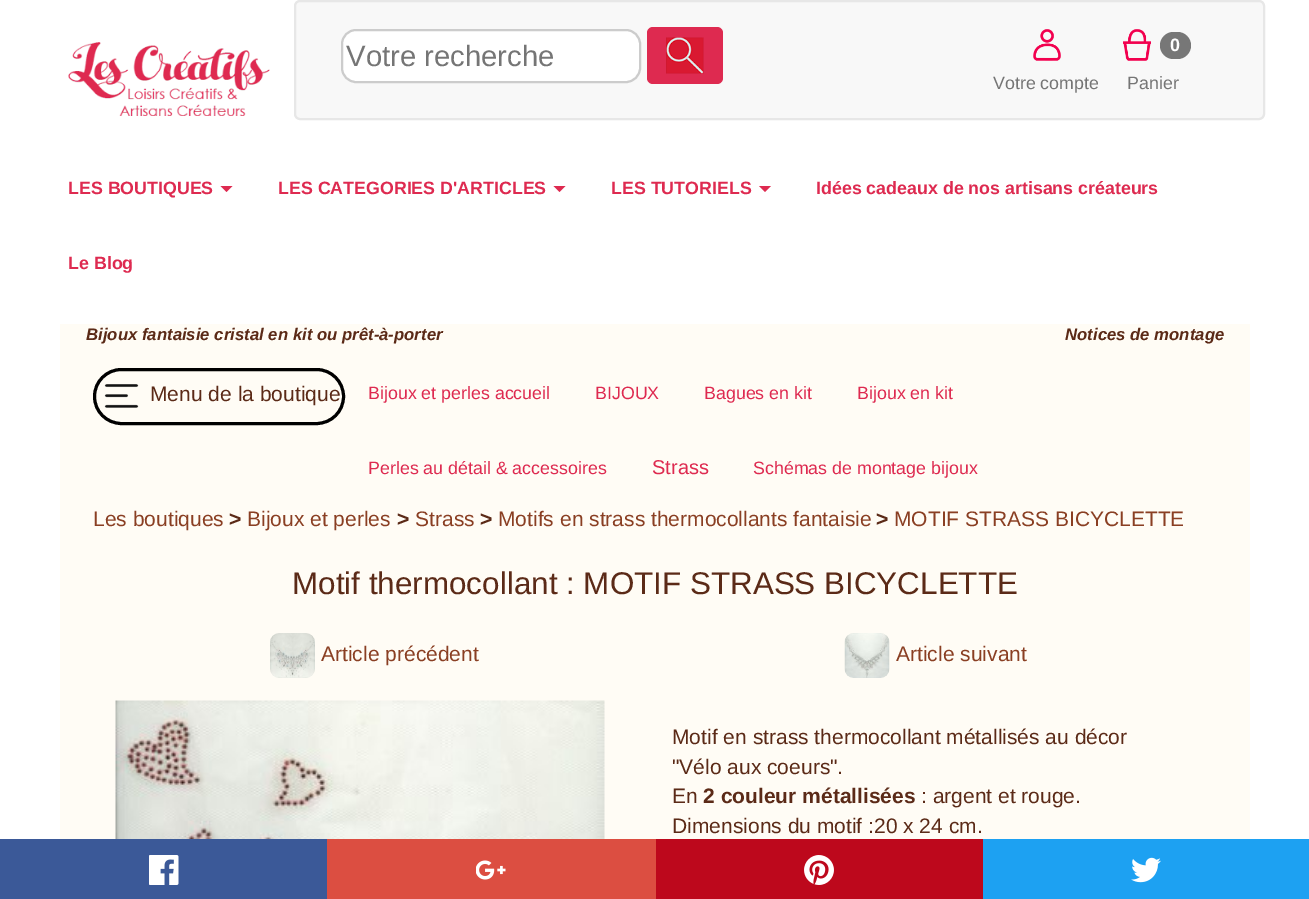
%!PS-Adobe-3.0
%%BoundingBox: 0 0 1309 899
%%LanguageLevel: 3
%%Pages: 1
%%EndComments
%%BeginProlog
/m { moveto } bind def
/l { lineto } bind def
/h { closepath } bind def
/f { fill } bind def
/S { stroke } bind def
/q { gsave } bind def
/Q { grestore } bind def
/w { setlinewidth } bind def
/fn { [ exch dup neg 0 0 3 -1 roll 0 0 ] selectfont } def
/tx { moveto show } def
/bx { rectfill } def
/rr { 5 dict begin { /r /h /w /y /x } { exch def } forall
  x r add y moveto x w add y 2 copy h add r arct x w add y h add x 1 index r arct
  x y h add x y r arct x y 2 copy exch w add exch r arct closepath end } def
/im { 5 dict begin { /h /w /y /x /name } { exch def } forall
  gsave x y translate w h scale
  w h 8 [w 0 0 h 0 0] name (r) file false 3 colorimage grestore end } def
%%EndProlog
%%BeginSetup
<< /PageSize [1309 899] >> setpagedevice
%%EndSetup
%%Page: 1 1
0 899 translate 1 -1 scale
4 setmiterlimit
1 setgray
0 0 1309 899 bx
(image0.raw) 68 42 202 74 im
0.973 setgray
295 1 969 118 5 rr q f Q
0.906 setgray
2 w
S
1 setgray
342 30 298 52 14 rr q f Q
0.8 setgray
S
/LiberationSans-Regular 29.25 fn
0.459 setgray
(Votre recherche) 346 66 tx
0.871 0.165 0.314 setrgbcolor
647 27 76 57 6 rr f
(image1.raw) 666 37 38 37 im
(image2.raw) 1033 29 28 32 im
/LiberationSans-Regular 17.8 fn
0.459 setgray
(Votre compte) 993 89 tx
(image3.raw) 1123 29 28 32 im
0.467 setgray
1160 32 31 27 13.5 rr f
/LiberationSans-Bold 18 fn
1 setgray
(0) 1170 51 tx
/LiberationSans-Regular 17.8 fn
0.459 setgray
(Panier) 1127 89 tx
/LiberationSans-Bold 17.8 fn
0.871 0.165 0.314 setrgbcolor
(LES BOUTIQUES) 68 194 tx
220.5 186 m 232.5 186 l 226.5 192 l h f
(LES CATEGORIES D'ARTICLES) 278 194 tx
553.5 186 m 565.5 186 l 559.5 192 l h f
(LES TUTORIELS) 611 194 tx
759 186 m 771 186 l 765 192 l h f
(Idées cadeaux de nos artisans créateurs) 816 194 tx
(Le Blog) 68 269 tx
1 0.988 0.961 setrgbcolor
60 324 1190 515 bx
/LiberationSans-BoldItalic 16.75 fn
0.357 0.165 0.09 setrgbcolor
(Bijoux fantaisie cristal en kit ou prêt-à-porter) 86 340 tx
(Notices de montage) 1065 340 tx
0 setgray
3 w
94.5 369.5 249 54 27 rr S
(image4.raw) 104 384 35 24 im
/LiberationSans-Regular 21 fn
0.357 0.165 0.09 setrgbcolor
(Menu de la boutique) 150 401 tx
/LiberationSans-Regular 17.8 fn
0.871 0.165 0.314 setrgbcolor
(Bijoux et perles accueil) 368 399 tx
(BIJOUX) 595 399 tx
(Bagues en kit) 704 399 tx
(Bijoux en kit) 857 399 tx
(Perles au détail & accessoires) 368 474 tx
/LiberationSans-Regular 20 fn
(Strass) 652 474 tx
/LiberationSans-Regular 17.8 fn
(Schémas de montage bijoux) 753 474 tx
/LiberationSans-Regular 21 fn
0.541 0.247 0.137 setrgbcolor
(Les boutiques) 93 526 tx
/LiberationSans-Bold 21 fn
0.357 0.165 0.09 setrgbcolor
(>) 229 526 tx
/LiberationSans-Regular 21 fn
0.541 0.247 0.137 setrgbcolor
(Bijoux et perles) 247 526 tx
/LiberationSans-Bold 21 fn
0.357 0.165 0.09 setrgbcolor
(>) 397 526 tx
/LiberationSans-Regular 21 fn
0.541 0.247 0.137 setrgbcolor
(Strass) 415 526 tx
/LiberationSans-Bold 21 fn
0.357 0.165 0.09 setrgbcolor
(>) 480 526 tx
/LiberationSans-Regular 21 fn
0.541 0.247 0.137 setrgbcolor
(Motifs en strass thermocollants fantaisie) 498 526 tx
/LiberationSans-Bold 21 fn
0.357 0.165 0.09 setrgbcolor
(>) 876 526 tx
/LiberationSans-Regular 21 fn
0.541 0.247 0.137 setrgbcolor
(MOTIF STRASS BICYCLETTE) 894 526 tx
/LiberationSans-Regular 31.4 fn
0.357 0.165 0.09 setrgbcolor
(Motif thermocollant : MOTIF STRASS BICYCLETTE) 292 594 tx
(image5.raw) 270 633 45 45 im
/LiberationSans-Regular 21 fn
0.541 0.247 0.137 setrgbcolor
(Article précédent) 321 661 tx
(image6.raw) 844 633 46 45 im
(Article suivant) 896 661 tx
(image7.raw) 115 700 490 139 im
0.357 0.165 0.09 setrgbcolor
(Motif en strass thermocollant métallisés au décor) 672 744 tx
("Vélo aux coeurs".) 672 774 tx
(En) 672 803 tx
/LiberationSans-Bold 21 fn
(2 couleur métallisées) 703 803 tx
/LiberationSans-Regular 21 fn
(: argent et rouge.) 921 803 tx
(Dimensions du motif :20 x 24 cm.) 672 833 tx
0.231 0.349 0.596 setrgbcolor
0 839 327 60 bx
(image8.raw) 149 855 30 30 im
0.863 0.306 0.255 setrgbcolor
327 839 329 60 bx
(image9.raw) 476 860 30 20 im
0.741 0.031 0.11 setrgbcolor
656 839 327 60 bx
(image10.raw) 804 855 30 30 im
0.114 0.631 0.949 setrgbcolor
983 839 326 60 bx
(image11.raw) 1131 857 30 26 im
showpage
%%EOF
